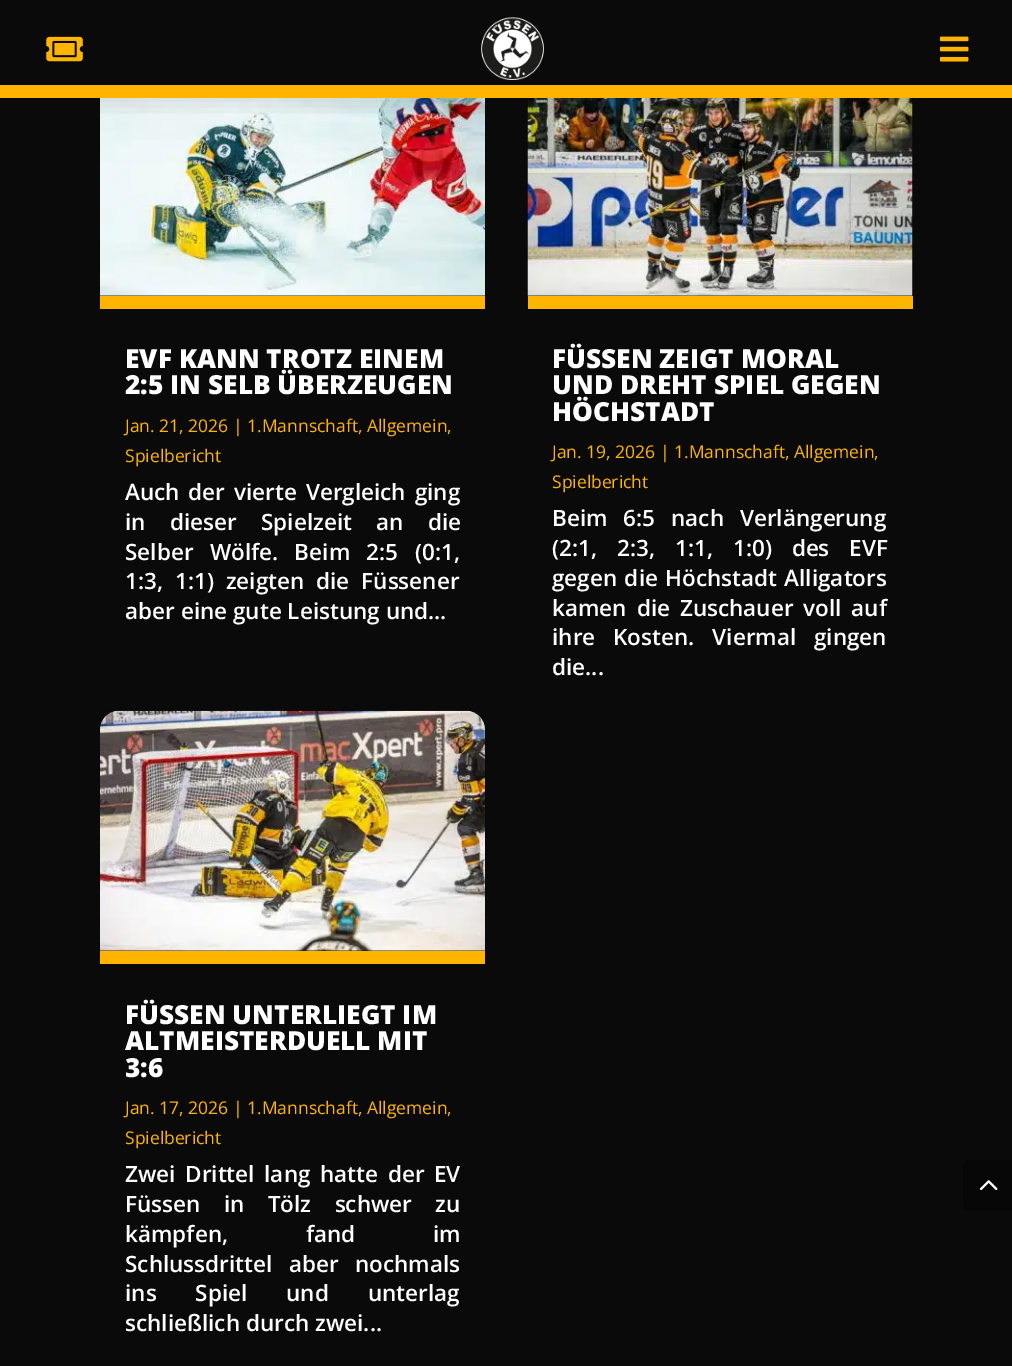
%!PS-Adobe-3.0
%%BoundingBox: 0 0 1012 1366
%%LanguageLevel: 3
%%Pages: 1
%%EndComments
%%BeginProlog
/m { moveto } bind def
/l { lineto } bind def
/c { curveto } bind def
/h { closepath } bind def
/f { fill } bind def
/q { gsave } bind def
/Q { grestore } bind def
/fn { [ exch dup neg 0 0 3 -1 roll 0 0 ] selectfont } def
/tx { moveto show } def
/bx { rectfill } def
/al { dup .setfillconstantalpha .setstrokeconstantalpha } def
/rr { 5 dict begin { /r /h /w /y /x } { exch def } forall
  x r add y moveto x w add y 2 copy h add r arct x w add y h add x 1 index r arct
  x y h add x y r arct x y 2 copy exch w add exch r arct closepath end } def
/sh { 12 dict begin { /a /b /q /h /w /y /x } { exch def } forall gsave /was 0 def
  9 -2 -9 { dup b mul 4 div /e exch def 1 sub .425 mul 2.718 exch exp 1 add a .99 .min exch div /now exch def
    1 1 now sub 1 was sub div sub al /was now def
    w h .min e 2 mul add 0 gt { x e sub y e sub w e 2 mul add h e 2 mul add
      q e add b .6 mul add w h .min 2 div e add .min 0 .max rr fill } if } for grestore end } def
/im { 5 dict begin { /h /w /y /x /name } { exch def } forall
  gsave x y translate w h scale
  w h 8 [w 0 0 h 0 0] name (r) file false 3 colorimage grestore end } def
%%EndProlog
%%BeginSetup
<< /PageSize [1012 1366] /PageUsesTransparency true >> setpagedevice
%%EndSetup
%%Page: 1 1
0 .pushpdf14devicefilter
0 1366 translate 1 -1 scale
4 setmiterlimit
0.039 setgray
0 0 1012 1366 bx
(image3.raw) 100 98 385 198 im
(image5.raw) 527 98 386 198 im
q
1 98 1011 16 rectclip
0 setgray
8 23 997 82 0 11 0.1 sh
Q
1 0.706 0 setrgbcolor
0 85 1012 13 bx
(image0.raw) 46 36 37 26 im
(image1.raw) 481 17 63 63 im
(image2.raw) 940 36 29 26 im
100 296 385 13 bx
/OpenSans-ExtraBold 26.25 fn
1 setgray
(EVF KANN TROTZ EINEM) 125 368 tx
(2:5 IN SELB ÜBERZEUGEN) 125 394 tx
/OpenSans-Regular 17.5 fn
1 0.706 0 setrgbcolor
(Jan. 21, 2026 | 1.Mannschaft, Allgemein,) 125 432 tx
(Spielbericht) 125 462 tx
/OpenSans-SemiBold 22.5 fn
1 setgray
125 500 m 3 0 32 (Auch der vierte Vergleich ging) widthshow
125 530 m 18.5 0 32 (in dieser Spielzeit an die) widthshow
125 560 m 10.5 0 32 (Selber Wölfe. Beim 2:5 \(0:1,) widthshow
125 589 m 6 0 32 (1:3, 1:1\) zeigten die Füssener) widthshow
(aber eine gute Leistung und...) 125 619 tx
1 0.706 0 setrgbcolor
100 951 385 13 bx
(image4.raw) 100 710 385 241 im
/OpenSans-ExtraBold 26.25 fn
1 setgray
(FÜSSEN UNTERLIEGT IM) 125 1024 tx
(ALTMEISTERDUELL MIT) 125 1050 tx
(3:6) 125 1077 tx
/OpenSans-Regular 17.5 fn
1 0.706 0 setrgbcolor
(Jan. 17, 2026 | 1.Mannschaft, Allgemein,) 125 1114 tx
(Spielbericht) 125 1144 tx
/OpenSans-SemiBold 22.5 fn
1 setgray
125 1182 m 3.75 0 32 (Zwei Drittel lang hatte der EV) widthshow
125 1212 m 17.5 0 32 (Füssen in Tölz schwer zu) widthshow
125 1242 m 72 0 32 (kämpfen, fand im) widthshow
125 1272 m 10.5 0 32 (Schlussdrittel aber nochmals) widthshow
125 1301 m 33 0 32 (ins Spiel und unterlag) widthshow
(schließlich durch zwei...) 125 1331 tx
1 0.706 0 setrgbcolor
528 296 385 13 bx
/OpenSans-ExtraBold 26.25 fn
1 setgray
(FÜSSEN ZEIGT MORAL) 552 368 tx
(UND DREHT SPIEL GEGEN) 552 394 tx
(HÖCHSTADT) 552 421 tx
/OpenSans-Regular 17.5 fn
1 0.706 0 setrgbcolor
(Jan. 19, 2026 | 1.Mannschaft, Allgemein,) 552 458 tx
(Spielbericht) 552 488 tx
/OpenSans-SemiBold 22.5 fn
1 setgray
552 526 m 10 0 32 (Beim 6:5 nach Verlängerung) widthshow
552 556 m 14 0 32 (\(2:1, 2:3, 1:1, 1:0\) des EVF) widthshow
552 586 m 1.5 0 32 (gegen die Höchstadt Alligators) widthshow
552 616 m 4 0 32 (kamen die Zuschauer voll auf) widthshow
552 645 m 12 0 32 (ihre Kosten. Viermal gingen) widthshow
(die...) 552 675 tx
0.024 setgray
969 1160 m 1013 1160 l 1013 1210 l 969 1210 l 965.5 1210 963 1207.5 963 1204 c 963 1166 l 963 1162.5 965.5 1160 969 1160 c h f
(image6.raw) 979 1180 19 11 im
.poppdf14devicefilter showpage
%%EOF
